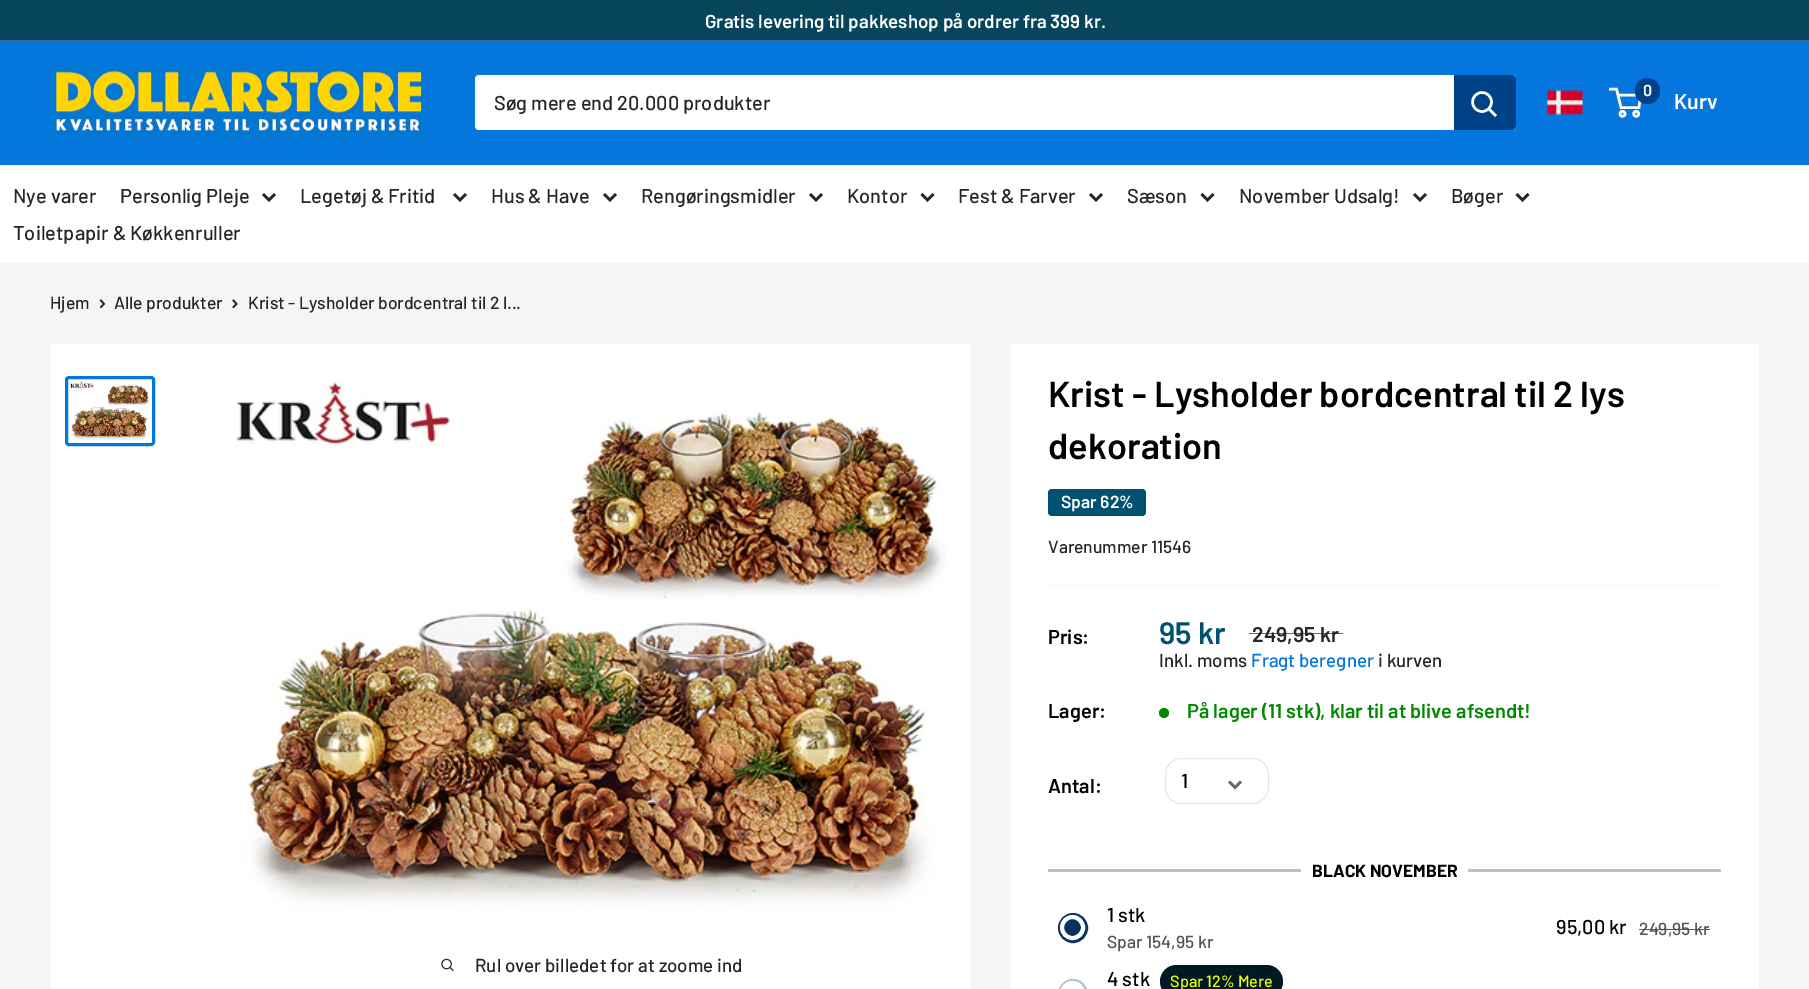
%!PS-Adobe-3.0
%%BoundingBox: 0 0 1809 989
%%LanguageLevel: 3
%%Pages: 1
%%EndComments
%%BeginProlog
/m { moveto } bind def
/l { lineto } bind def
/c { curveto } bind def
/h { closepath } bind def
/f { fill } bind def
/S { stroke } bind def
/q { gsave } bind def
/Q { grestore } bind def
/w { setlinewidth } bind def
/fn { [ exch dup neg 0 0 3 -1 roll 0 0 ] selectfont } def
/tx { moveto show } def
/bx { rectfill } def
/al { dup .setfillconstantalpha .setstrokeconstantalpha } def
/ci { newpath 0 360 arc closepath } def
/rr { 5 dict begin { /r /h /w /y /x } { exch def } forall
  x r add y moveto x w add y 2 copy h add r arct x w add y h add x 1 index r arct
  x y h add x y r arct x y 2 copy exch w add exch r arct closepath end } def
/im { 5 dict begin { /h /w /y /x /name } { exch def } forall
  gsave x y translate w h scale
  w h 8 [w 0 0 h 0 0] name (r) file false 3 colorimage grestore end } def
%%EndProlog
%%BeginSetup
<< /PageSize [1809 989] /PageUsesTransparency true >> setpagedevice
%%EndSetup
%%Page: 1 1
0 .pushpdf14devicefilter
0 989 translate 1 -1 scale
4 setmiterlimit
0.953 0.961 0.965 setrgbcolor
0 0 1809 989 bx
0.024 0.271 0.357 setrgbcolor
0 0 1809 40 bx
0.208 0.396 0.529 setrgbcolor
0 40 1809 1 bx
/Barlow-SemiBold 18.75 fn
1 setgray
(Gratis levering til pakkeshop på ordrer fra 399 kr.) 705 28 tx
0.016 0.463 0.871 setrgbcolor
0 41 1809 124 bx
(image0.raw) 50 66 375 74 im
1 setgray
475 75 1041 55 4 rr f
/Barlow-Medium 20 fn
0.141 0.153 0.161 setrgbcolor
(Søg mere end 20.000 produkter) 494 110 tx
0 0.259 0.533 setrgbcolor
1454 75 m 1512 75 l 1514 75 1516 77 1516 79 c 1516 126 l 1516 128 1514 130 1512 130 c 1454 130 l h f
1 setgray
2.5 w
2 setlinecap
1495 115 m 1489 109 l S
0 setlinecap
1482 102 9.5 ci S
(image1.raw) 1547 90 36 26 im
1622.5 113.8 2.5 ci S
1636.2 113.8 2.5 ci S
1618 95 m 1640.5 95 l 1639 107.5 l 1621 107.5 l 1616.5 89 l 1609 89 l S
0 0.259 0.533 setrgbcolor
1635 78 25 26 12.5 rr f
/Barlow-SemiBold 16 fn
1 setgray
(0) 1643 96 tx
/Barlow-SemiBold 21.25 fn
(Kurv) 1674 109 tx
0 165 1809 98 bx
/Barlow-Medium 20 fn
0.141 0.153 0.161 setrgbcolor
(Nye varer) 13 203 tx
(Personlig Pleje) 120 203 tx
2 setlinecap
274 195 m 269 200 l 264 195 l S
(Legetøj & Fritid) 300 203 tx
465 195 m 460 200 l 455 195 l S
(Hus & Have) 491 203 tx
615 195 m 610 200 l 605 195 l S
(Rengøringsmidler) 641 203 tx
821 195 m 816 200 l 811 195 l S
(Kontor) 847 203 tx
932.5 195 m 927.5 200 l 922.5 195 l S
(Fest & Farver) 958 203 tx
1101 195 m 1096 200 l 1091 195 l S
(Sæson) 1127 203 tx
1212.5 195 m 1207.5 200 l 1202.5 195 l S
(November Udsalg!) 1239 203 tx
1425 195 m 1420 200 l 1415 195 l S
(Bøger) 1451 203 tx
1527.5 195 m 1522.5 200 l 1517.5 195 l S
(Toiletpapir & Køkkenruller) 13 240 tx
/Barlow-Medium 17.5 fn
(Hjem) 50 309 tx
1.7 w
101 300.5 m 104 304 l 101 307 l S
(Alle produkter) 114 309 tx
233.5 300.5 m 236.5 304 l 233.5 307 l S
(Krist - Lysholder bordcentral til 2 l...) 248 309 tx
1 setgray
50.5 343.5 920 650 3.5 rr q f Q
0.953 0.961 0.965 setrgbcolor
1 w
0 setlinecap
S
0.016 0.463 0.871 setrgbcolor
3 w
66.5 377.5 87 67 2.5 rr S
(image2.raw) 70 381 79 59 im
(image3.raw) 236 381 711 529 im
(image4.raw) 441 958 13 14 im
/Barlow-Medium 18.75 fn
0.141 0.153 0.161 setrgbcolor
(Rul over billedet for at zoome ind) 475 972 tx
1 setgray
1009.5 343.5 750 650 3.5 rr q f Q
0.953 0.961 0.965 setrgbcolor
1 w
S
/Barlow-SemiBold 36.25 fn
0 setgray
(Krist - Lysholder bordcentral til 2 lys) 1048 407 tx
(dekoration) 1048 459 tx
0 0.322 0.439 setrgbcolor
1048 489 98 27 4 rr f
/Barlow-SemiBold 17.5 fn
1 setgray
(Spar 62%) 1061 508 tx
/Barlow-Medium 17.5 fn
0.141 0.153 0.161 setrgbcolor
(Varenummer 11546) 1048 553 tx
0.953 0.961 0.965 setrgbcolor
1048 585 673 1 bx
/Barlow-SemiBold 20 fn
0 setgray
(Pris:) 1048 644 tx
/Barlow-SemiBold 31 fn
0 0.322 0.439 setrgbcolor
(95 kr) 1159 644 tx
/Barlow-SemiBold 21.25 fn
0.141 0.153 0.161 setrgbcolor
(249,95 kr) 1252 642 tx
0.7 al
1249 633 94 1 bx
/Barlow-Medium 18.75 fn
1 al
(Inkl. moms) 1159 667 tx
0.016 0.463 0.871 setrgbcolor
(Fragt beregner) 1251 667 tx
0.141 0.153 0.161 setrgbcolor
(i kurven) 1378 667 tx
/Barlow-SemiBold 20 fn
0 setgray
(Lager:) 1048 718 tx
0 0.541 0 setrgbcolor
1164 713 5 ci f
(På lager \(11 stk\), klar til at blive afsendt!) 1187 718 tx
0 setgray
(Antal:) 1048 793 tx
0.984 0.988 0.988 setrgbcolor
1166 786 m 1166 804 1179 803 1193 803 c 1241 803 l 1255 803 1268 804 1268 786 c 1268 795 1261 801 1252 801 c 1181 801 l 1173 801 1166 795 1166 786 c h f
0.894 0.914 0.922 setrgbcolor
1165.5 758.5 103 45 15.5 rr S
/Barlow-Medium 20 fn
0 setgray
(1) 1181 788 tx
0.4 0.408 0.412 setrgbcolor
2.5 w
2 setlinecap
1240 782.5 m 1235 787.5 l 1230 782.5 l S
0.71 0.757 0.816 setrgbcolor
1048 869 253 3 bx
/Barlow-Bold 17.5 fn
0 setgray
(BLACK NOVEMBER) 1312 877 tx
0.71 0.757 0.816 setrgbcolor
1468 869 253 3 bx
0.035 0.192 0.384 setrgbcolor
3 w
0 setlinecap
1073 928 13.5 ci S
1072.5 927.5 10.5 ci q f Q
1 setgray
4 w
S
/Barlow-Medium 20 fn
0 setgray
(1 stk) 1107 922 tx
/Barlow-Medium 17.5 fn
0.333 setgray
(Spar 154,95 kr) 1107 948 tx
/Barlow-Medium 20 fn
0 setgray
(95,00 kr) 1556 934 tx
/Barlow-Medium 17.5 fn
0.333 setgray
(249,95 kr) 1639 935 tx
1639 929 71 1 bx
0.71 0.757 0.816 setrgbcolor
3 w
1059.5 980.5 27 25 13.5 rr S
1 setgray
1072.5 993.5 10.5 ci q f Q
4 w
S
/Barlow-Medium 20 fn
0 setgray
(4 stk) 1107 986 tx
0 0.098 0.141 setrgbcolor
1160 965 123 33 16.5 rr f
/Barlow-Medium 16.25 fn
0.918 1 0 setrgbcolor
(Spar 12% Mere) 1170 987 tx
.poppdf14devicefilter showpage
%%EOF
